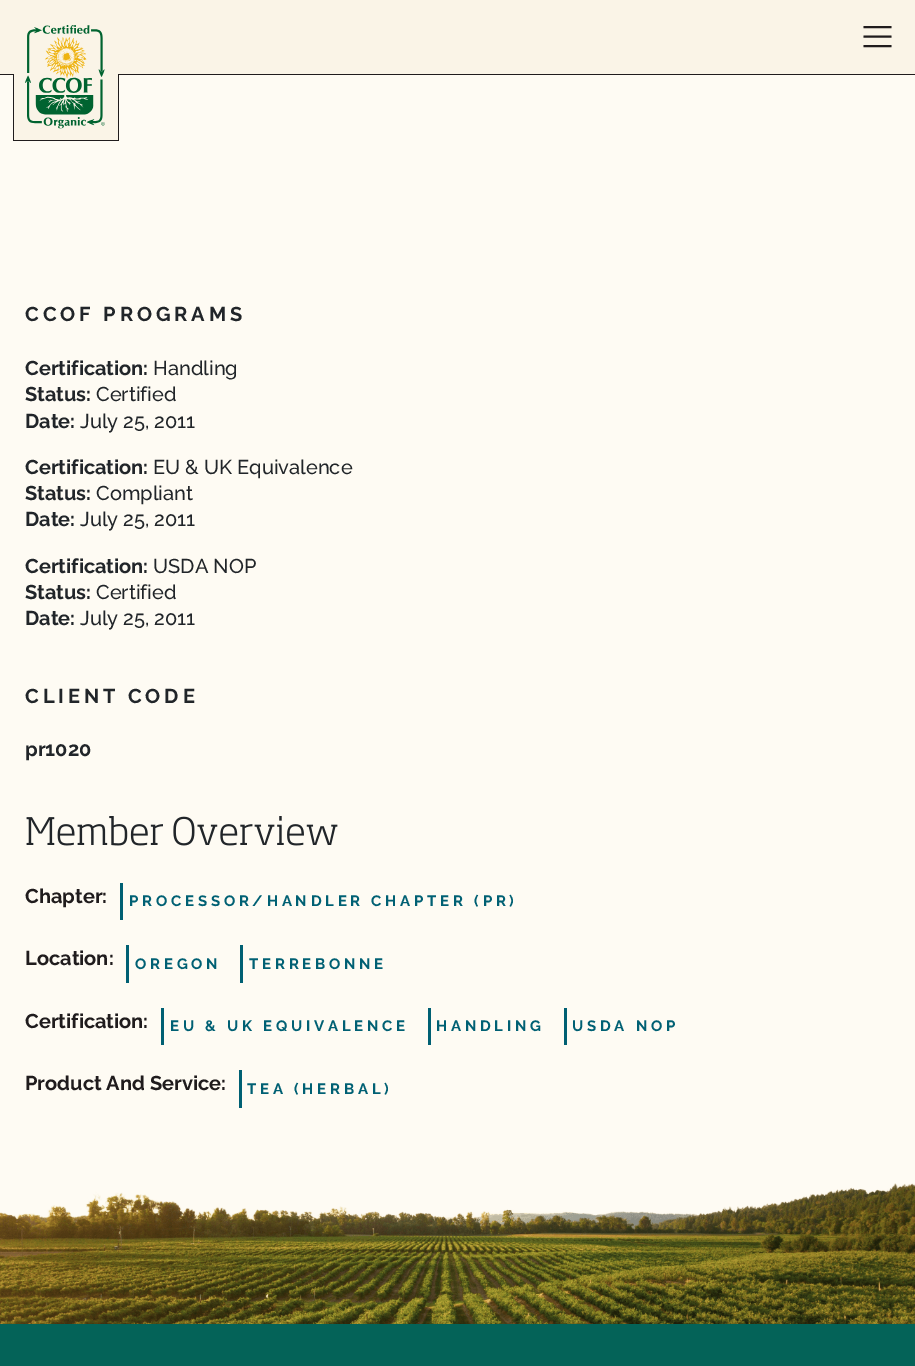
%!PS-Adobe-3.0
%%BoundingBox: 0 0 915 1366
%%LanguageLevel: 3
%%Pages: 1
%%EndComments
%%BeginProlog
/m { moveto } bind def
/l { lineto } bind def
/S { stroke } bind def
/w { setlinewidth } bind def
/fn { [ exch dup neg 0 0 3 -1 roll 0 0 ] selectfont } def
/tx { moveto show } def
/bx { rectfill } def
/im { 5 dict begin { /h /w /y /x /name } { exch def } forall
  gsave x y translate w h scale
  w h 8 [w 0 0 h 0 0] name (r) file false 3 colorimage grestore end } def
%%EndProlog
%%BeginSetup
<< /PageSize [915 1366] >> setpagedevice
%%EndSetup
%%Page: 1 1
0 1366 translate 1 -1 scale
4 setmiterlimit
0.996 0.984 0.953 setrgbcolor
0 0 915 1366 bx
0.98 0.957 0.906 setrgbcolor
0 0 915 74 bx
0.125 0.11 0.114 setrgbcolor
0 74 915 1 bx
0.98 0.957 0.906 setrgbcolor
13 74 105 66 bx
(image0.raw) 25 25 80 104 im
0.125 0.11 0.114 setrgbcolor
118 74 1 67 bx
13 140 106 1 bx
13 74 1 67 bx
1.9 w
863.5 27 m 891.5 27 l 863.5 36.5 m 891.5 36.5 l 863.5 46 m 891.5 46 l S
/Raleway-Bold 20 fn
0.129 0.145 0.161 setrgbcolor
25 321 m 3.9 0 (CCOF PROGRAMS) ashow
(Certification:) 25 375 tx
/Raleway-Medium 20 fn
(Handling) 153 375 tx
/Raleway-Bold 20 fn
(Status:) 25 401 tx
/Raleway-Medium 20 fn
(Certified) 96 401 tx
/Raleway-Bold 20 fn
(Date:) 25 428 tx
/Raleway-Medium 20 fn
(July 25, 2011) 80 428 tx
/Raleway-Bold 20 fn
(Certification:) 25 474 tx
/Raleway-Medium 20 fn
(EU & UK Equivalence) 153 474 tx
/Raleway-Bold 20 fn
(Status:) 25 500 tx
/Raleway-Medium 20 fn
(Compliant) 96 500 tx
/Raleway-Bold 20 fn
(Date:) 25 526 tx
/Raleway-Medium 20 fn
(July 25, 2011) 80 526 tx
/Raleway-Bold 20 fn
(Certification:) 25 573 tx
/Raleway-Medium 20 fn
(USDA NOP) 153 573 tx
/Raleway-Bold 20 fn
(Status:) 25 599 tx
/Raleway-Medium 20 fn
(Certified) 96 599 tx
/Raleway-Bold 20 fn
(Date:) 25 625 tx
/Raleway-Medium 20 fn
(July 25, 2011) 80 625 tx
/Raleway-Bold 20 fn
25 703 m 3.9 0 (CLIENT CODE) ashow
(pr1020) 25 756 tx
(image1.raw) 26 816 312 30 im
0.125 0.11 0.114 setrgbcolor
(Chapter:) 25 903 tx
0 0.376 0.451 setrgbcolor
120 883 3 37 bx
/Raleway-Bold 15 fn
129 906 m 3.75 0 (PROCESSOR/HANDLER CHAPTER \(PR\)) ashow
/Raleway-Bold 20 fn
0.125 0.11 0.114 setrgbcolor
(Location:) 25 965 tx
0 0.376 0.451 setrgbcolor
126 945 3 38 bx
/Raleway-Bold 15 fn
135 969 m 3.75 0 (OREGON) ashow
240 945 3 38 bx
249 969 m 3.75 0 (TERREBONNE) ashow
/Raleway-Bold 20 fn
0.125 0.11 0.114 setrgbcolor
(Certification:) 25 1028 tx
0 0.376 0.451 setrgbcolor
161 1008 3 37 bx
/Raleway-Bold 15 fn
170 1031 m 3.75 0 (EU & UK EQUIVALENCE) ashow
428 1008 3 37 bx
436 1031 m 3.75 0 (HANDLING) ashow
564 1008 3 37 bx
572 1031 m 3.75 0 (USDA NOP) ashow
/Raleway-Bold 20 fn
0.125 0.11 0.114 setrgbcolor
(Product And Service:) 25 1090 tx
0 0.376 0.451 setrgbcolor
239 1070 3 38 bx
/Raleway-Bold 15 fn
247 1094 m 3.75 0 (TEA \(HERBAL\)) ashow
(image2.raw) 0 1183 915 141 im
0.016 0.388 0.345 setrgbcolor
0 1324 915 42 bx
showpage
%%EOF
